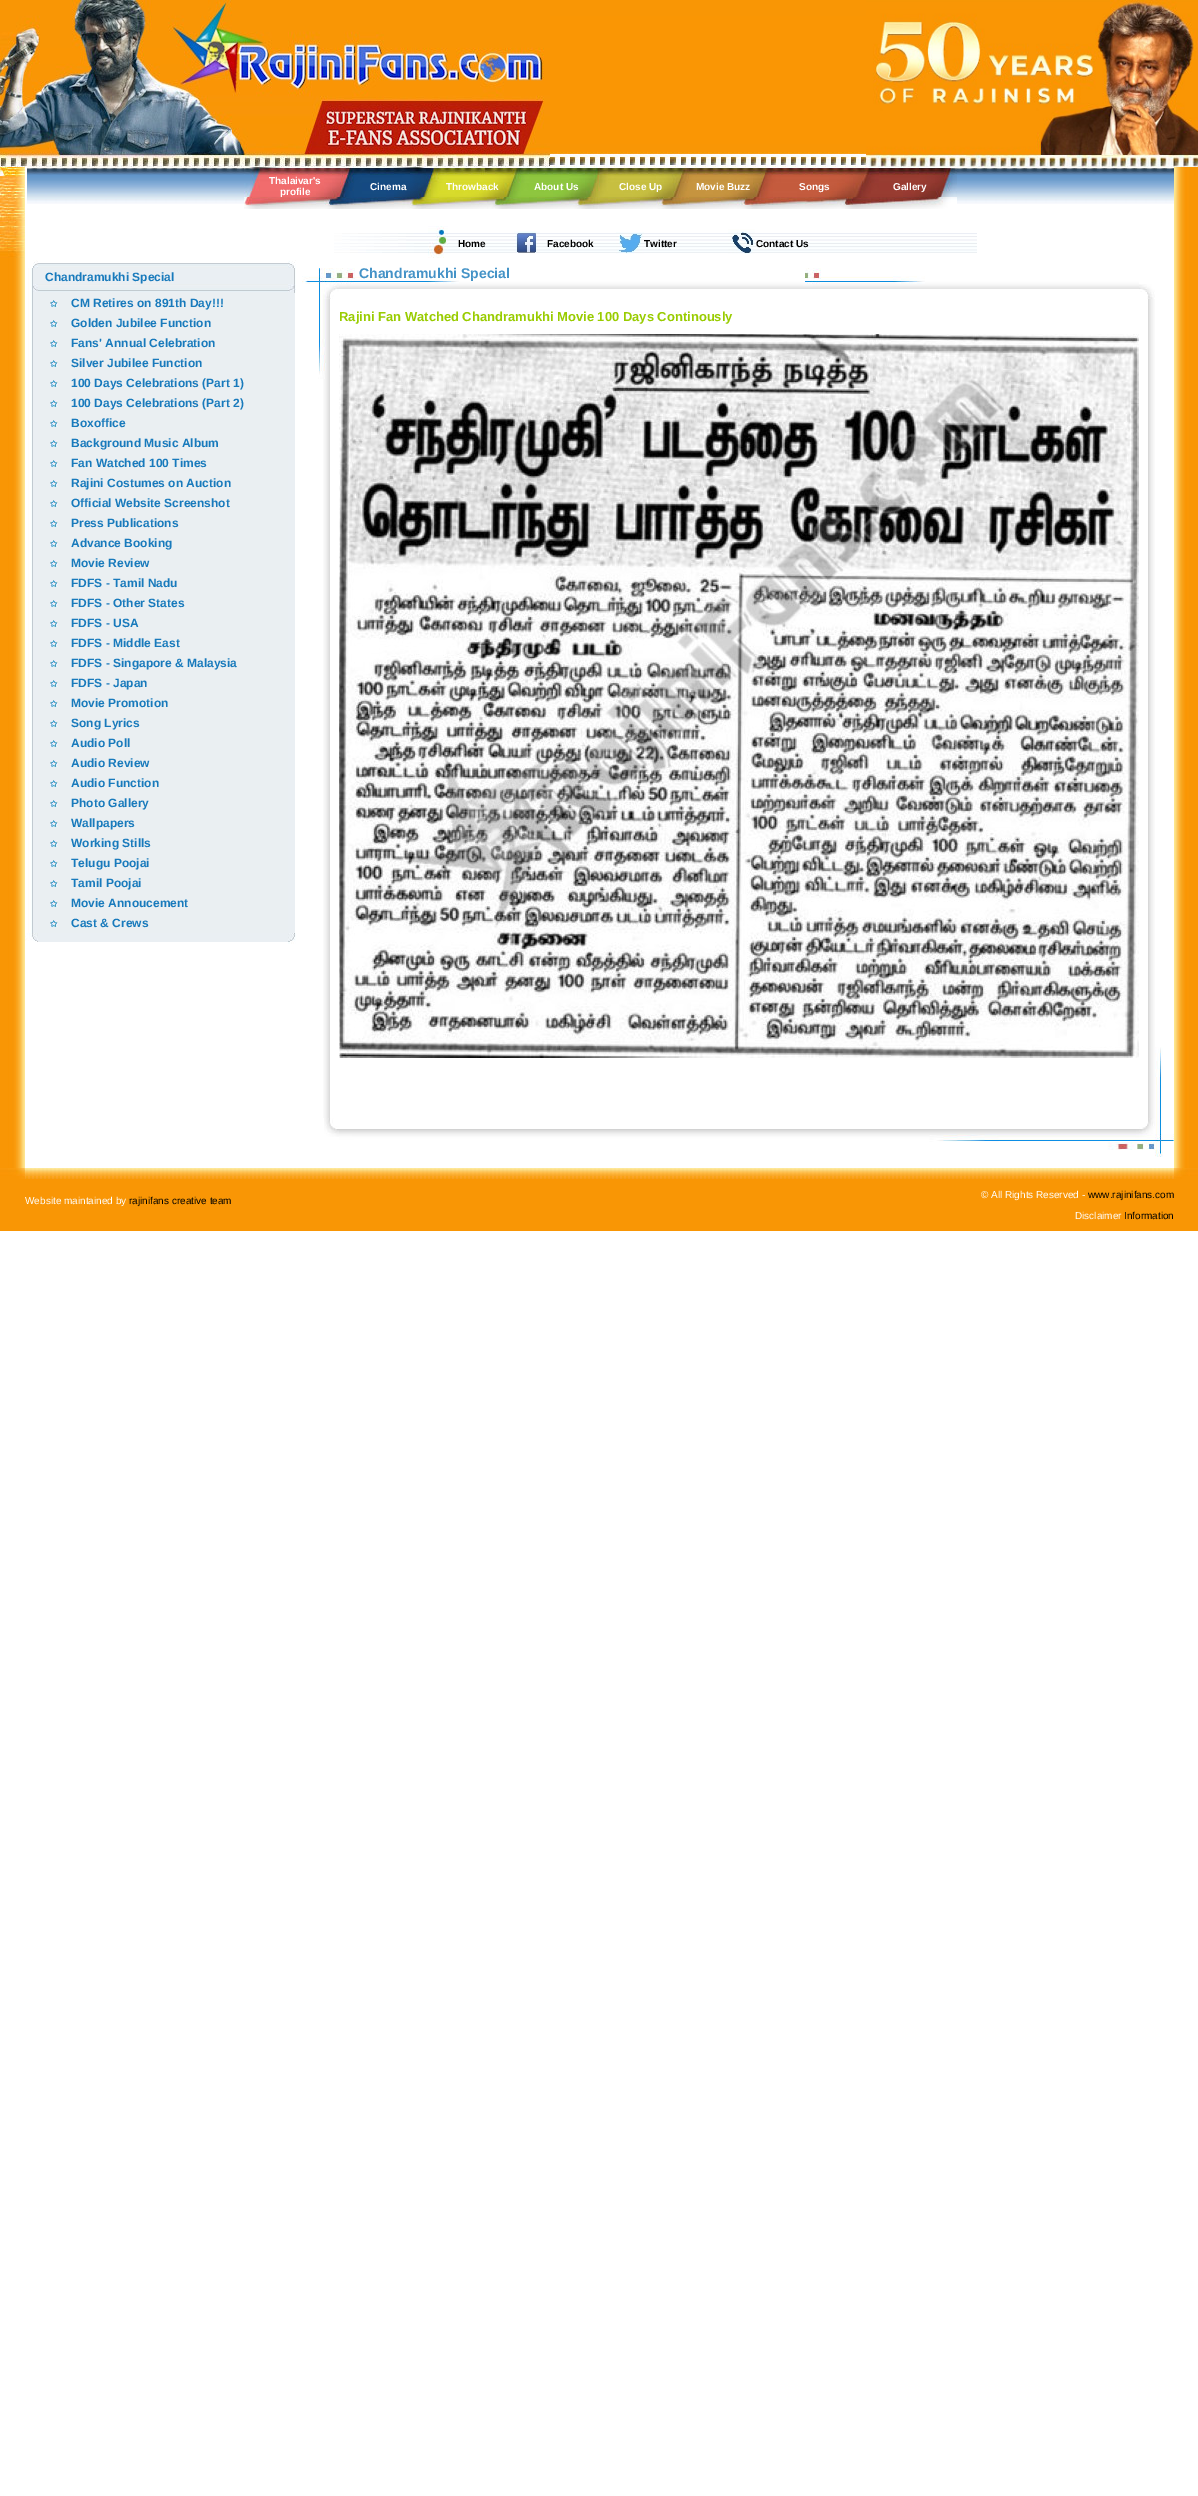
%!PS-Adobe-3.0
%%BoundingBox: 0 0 1198 2496
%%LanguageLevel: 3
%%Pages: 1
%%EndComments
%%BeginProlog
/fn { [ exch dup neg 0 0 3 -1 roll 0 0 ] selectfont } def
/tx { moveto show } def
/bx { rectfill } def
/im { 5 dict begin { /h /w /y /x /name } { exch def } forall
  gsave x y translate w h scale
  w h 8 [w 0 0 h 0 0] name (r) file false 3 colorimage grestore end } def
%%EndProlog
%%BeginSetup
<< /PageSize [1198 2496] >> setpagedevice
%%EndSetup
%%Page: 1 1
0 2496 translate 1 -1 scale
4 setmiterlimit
1 setgray
0 0 1198 2496 bx
(image0.raw) 550 0 121 167 im
(image1.raw) 0 0 550 167 im
(image2.raw) 671 0 195 167 im
(image3.raw) 866 0 332 167 im
(image4.raw) 0 167 25 59 im
(image5.raw) 27 167 1147 37 im
(image6.raw) 244 167 102 8 im
(image7.raw) 346 167 85 8 im
(image8.raw) 431 167 82 8 im
(image9.raw) 513 167 87 8 im
(image10.raw) 600 167 81 8 im
(image11.raw) 681 167 84 8 im
(image12.raw) 765 167 98 8 im
(image13.raw) 863 167 94 8 im
(image14.raw) 244 175 102 22 im
/LiberationSans-Bold 10 fn
(Thalaivar's) 269 184 tx
(profile) 280 195 tx
(image15.raw) 346 175 85 22 im
(Cinema) 370 190 tx
(image16.raw) 431 175 82 22 im
(Throwback) 446 190 tx
(image17.raw) 513 175 87 22 im
(About Us) 534 190 tx
(image18.raw) 600 175 81 22 im
(Close Up) 619 190 tx
(image19.raw) 681 175 84 22 im
(Movie Buzz) 696 190 tx
(image20.raw) 765 175 98 22 im
(Songs) 799 190 tx
(image21.raw) 863 175 94 22 im
(Gallery) 893 190 tx
(image22.raw) 244 197 102 12 im
(image23.raw) 346 197 85 12 im
(image24.raw) 431 197 82 12 im
(image25.raw) 513 197 87 12 im
(image26.raw) 600 197 81 12 im
(image27.raw) 681 197 84 12 im
(image28.raw) 765 197 98 12 im
(image29.raw) 863 197 94 12 im
(image30.raw) 1174 167 24 59 im
(image31.raw) 0 258 25 899 im
(image32.raw) 0 226 25 32 im
(image33.raw) 334 233 94 20 im
(image34.raw) 448 233 10 20 im
(image35.raw) 428 226 20 32 im
(image36.raw) 458 233 54 20 im
0 setgray
(Home) 458 247 tx
(image37.raw) 512 233 35 20 im
(image38.raw) 514 231 26 22 im
(image39.raw) 547 233 69 20 im
(Facebook) 547 247 tx
(image40.raw) 616 232 28 22 im
(image41.raw) 644 233 84 20 im
(Twitter) 644 247 tx
(image42.raw) 755 233 1 20 im
(image43.raw) 728 229 27 25 im
(image44.raw) 756 233 221 20 im
(Contact Us) 756 247 tx
(image45.raw) 28 260 10 33 im
(image46.raw) 38 263 250 30 im
/LiberationSans-Bold 12 fn
0.094 0.478 0.737 setrgbcolor
(Chandramukhi Special) 45 281 tx
(image47.raw) 288 260 8 33 im
(image48.raw) 28 293 10 640 im
0.918 0.937 0.949 setrgbcolor
38 293 250 640 bx
(image49.raw) 50 300 8 7 im
0.094 0.478 0.737 setrgbcolor
(CM Retires on 891th Day!!!) 71 307 tx
(image49.raw) 50 320 8 7 im
(Golden Jubilee Function) 71 327 tx
(image49.raw) 50 340 8 7 im
(Fans' Annual Celebration) 71 347 tx
(image49.raw) 50 360 8 7 im
(Silver Jubilee Function) 71 367 tx
(image49.raw) 50 380 8 7 im
(100 Days Celebrations \(Part 1\)) 71 387 tx
(image49.raw) 50 400 8 7 im
(100 Days Celebrations \(Part 2\)) 71 407 tx
(image49.raw) 50 420 8 7 im
(Boxoffice) 71 427 tx
(image49.raw) 50 440 8 7 im
(Background Music Album) 71 447 tx
(image49.raw) 50 460 8 7 im
(Fan Watched 100 Times) 71 467 tx
(image49.raw) 50 480 8 7 im
(Rajini Costumes on Auction) 71 487 tx
(image49.raw) 50 500 8 7 im
(Official Website Screenshot) 71 507 tx
(image49.raw) 50 520 8 7 im
(Press Publications) 71 527 tx
(image49.raw) 50 540 8 7 im
(Advance Booking) 71 547 tx
(image49.raw) 50 560 8 7 im
(Movie Review) 71 567 tx
(image49.raw) 50 580 8 7 im
(FDFS - Tamil Nadu) 71 587 tx
(image49.raw) 50 600 8 7 im
(FDFS - Other States) 71 607 tx
(image49.raw) 50 620 8 7 im
(FDFS - USA) 71 627 tx
(image49.raw) 50 640 8 7 im
(FDFS - Middle East) 71 647 tx
(image49.raw) 50 660 8 7 im
(FDFS - Singapore & Malaysia) 71 667 tx
(image49.raw) 50 680 8 7 im
(FDFS - Japan) 71 687 tx
(image49.raw) 50 700 8 7 im
(Movie Promotion) 71 707 tx
(image49.raw) 50 720 8 7 im
(Song Lyrics) 71 727 tx
(image49.raw) 50 740 8 7 im
(Audio Poll) 71 747 tx
(image49.raw) 50 760 8 7 im
(Audio Review) 71 767 tx
(image49.raw) 50 780 8 7 im
(Audio Function) 71 787 tx
(image49.raw) 50 800 8 7 im
(Photo Gallery) 71 807 tx
(image49.raw) 50 820 8 7 im
(Wallpapers) 71 827 tx
(image49.raw) 50 840 8 7 im
(Working Stills) 71 847 tx
(image49.raw) 50 860 8 7 im
(Telugu Poojai) 71 867 tx
(image49.raw) 50 880 8 7 im
(Tamil Poojai) 71 887 tx
(image49.raw) 50 900 8 7 im
(Movie Annoucement) 71 907 tx
(image49.raw) 50 920 8 7 im
(Cast & Crews) 71 927 tx
0.918 0.937 0.953 setrgbcolor
288 293 7 640 bx
(image50.raw) 25 933 13 9 im
38 933 250 9 bx
(image51.raw) 288 933 8 11 im
(image52.raw) 302 268 37 31 im
(image53.raw) 339 268 800 21 im
/LiberationSans-Bold 14 fn
0.267 0.576 0.78 setrgbcolor
(Chandramukhi Special) 359 278 tx
(image54.raw) 1139 284 16 15 im
(image55.raw) 323 299 7 819 im
(image56.raw) 318 299 8 80 im
/LiberationSans-Bold 13 fn
0.6 0.8 0 setrgbcolor
(Rajini Fan Watched Chandramukhi Movie 100 Days Continously) 339 321 tx
(image57.raw) 339 334 800 724 im
(image58.raw) 1148 299 7 819 im
(image59.raw) 1155 1047 8 71 im
(image60.raw) 324 1118 15 19 im
(image61.raw) 339 1129 800 21 im
(image62.raw) 1139 1118 35 39 im
(image63.raw) 1174 226 24 931 im
(image64.raw) 0 1157 25 11 im
(image65.raw) 1174 1157 24 11 im
(image66.raw) 0 1168 25 11 im
(image67.raw) 25 1168 1149 11 im
(image68.raw) 1174 1168 24 11 im
0.976 0.588 0.02 setrgbcolor
0 1179 1198 52 bx
/LiberationSans-Regular 10 fn
1 setgray
(Website maintained by) 25 1204 tx
0 setgray
(rajinifans creative team) 129 1204 tx
1 setgray
(© All Rights Reserved -) 981 1198 tx
0 setgray
(www.rajinifans.com) 1088 1198 tx
1 setgray
(Disclaimer) 1075 1219 tx
0 setgray
(Information) 1124 1219 tx
showpage
%%EOF
